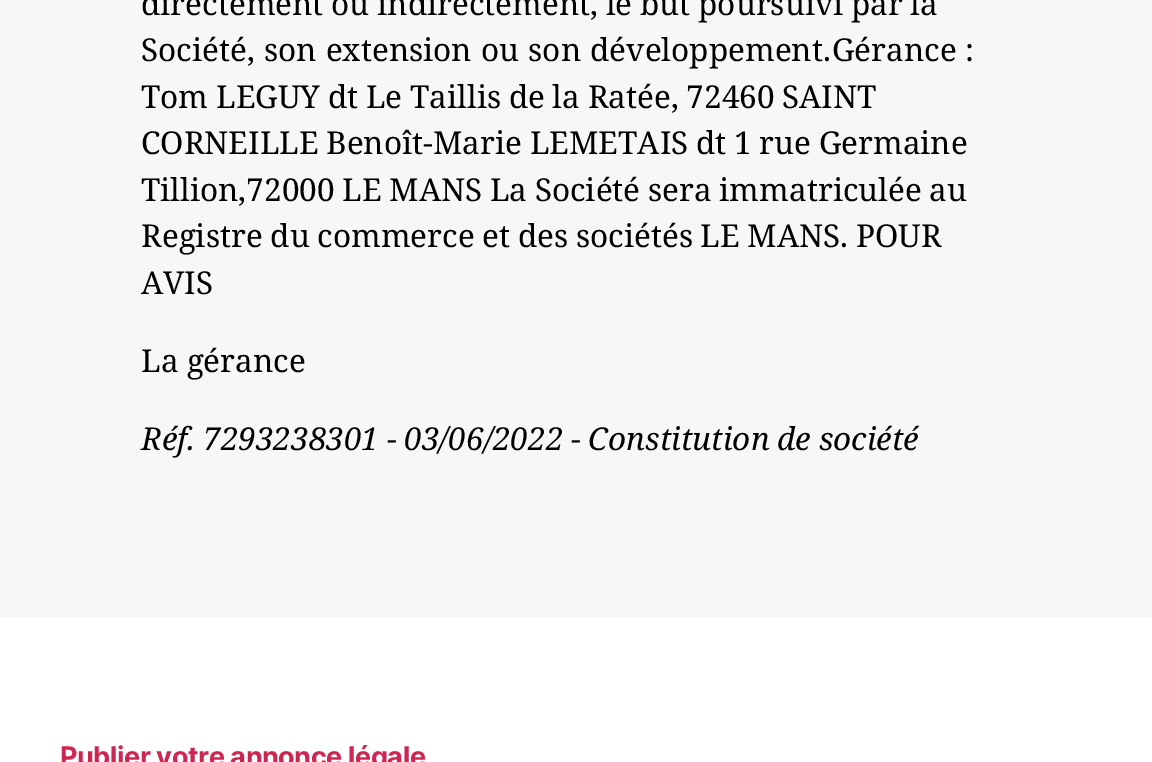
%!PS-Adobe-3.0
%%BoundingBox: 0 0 1152 762
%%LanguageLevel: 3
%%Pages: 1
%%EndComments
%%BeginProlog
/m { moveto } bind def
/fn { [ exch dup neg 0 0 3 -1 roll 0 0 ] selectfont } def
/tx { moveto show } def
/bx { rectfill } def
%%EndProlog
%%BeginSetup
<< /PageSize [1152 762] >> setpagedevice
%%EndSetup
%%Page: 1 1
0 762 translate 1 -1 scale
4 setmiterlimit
0.969 setgray
0 0 1152 762 bx
/NotoSerif-Regular 31.5 fn
0 setgray
141 15 m -0.5 0 32 (directement ou indirectement, le but poursuivi par la) widthshow
141 61 m 1 0 32 (Société, son extension ou son développement.) widthshow
(Gérance :) 832 61 tx
141 108 m -0.5 0 32 (Tom LEGUY dt Le Taillis de la Ratée, 72460 SAINT) widthshow
(CORNEILLE) 141 154 tx
326 154 m -0.5 0 32 (Benoît-Marie LEMETAIS dt 1 rue Germaine) widthshow
141 201 m -0.5 0 32 (Tillion,72000 LE MANS La Société sera immatriculée au) widthshow
141 247 m -0.5 0 32 (Registre du commerce et des sociétés LE MANS. POUR) widthshow
(AVIS) 141 294 tx
(La gérance) 141 372 tx
/NotoSerif-Italic 31.5 fn
141 450 m -0.5 0 32 (Réf. 7293238301 - 03/06/2022 - Constitution de société) widthshow
1 setgray
0 617 1152 145 bx
/Inter-Bold 27 fn
0.804 0.149 0.325 setrgbcolor
60 766 m -0.4 0 (Publier votre annonce légale) ashow
showpage
%%EOF
